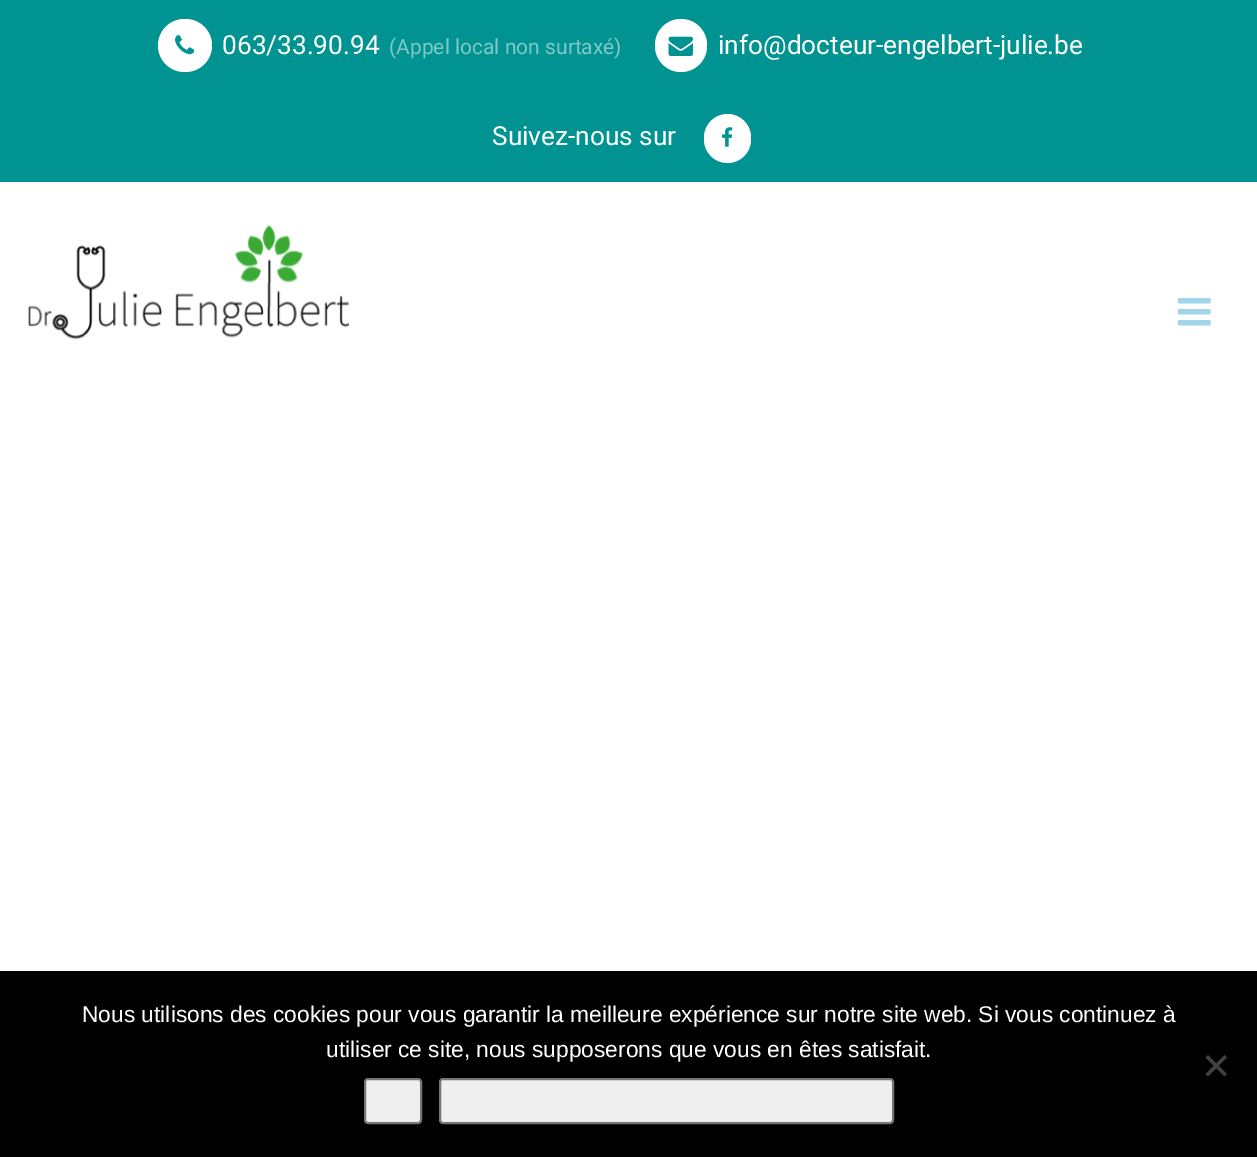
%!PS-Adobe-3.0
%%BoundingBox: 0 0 1257 1157
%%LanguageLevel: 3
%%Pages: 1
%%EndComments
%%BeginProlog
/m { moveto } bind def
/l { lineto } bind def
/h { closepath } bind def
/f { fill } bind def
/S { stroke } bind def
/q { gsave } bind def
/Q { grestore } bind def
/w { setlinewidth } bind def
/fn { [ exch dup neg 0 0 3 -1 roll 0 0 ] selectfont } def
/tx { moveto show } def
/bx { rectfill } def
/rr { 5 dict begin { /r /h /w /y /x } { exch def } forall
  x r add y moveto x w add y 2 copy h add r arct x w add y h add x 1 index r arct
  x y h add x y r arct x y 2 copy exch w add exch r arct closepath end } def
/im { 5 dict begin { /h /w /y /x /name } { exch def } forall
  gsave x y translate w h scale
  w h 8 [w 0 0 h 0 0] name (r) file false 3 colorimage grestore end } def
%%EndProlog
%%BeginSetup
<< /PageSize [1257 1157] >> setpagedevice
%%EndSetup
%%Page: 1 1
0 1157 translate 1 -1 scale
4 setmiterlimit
1 setgray
0 0 1257 1157 bx
0 0.576 0.569 setrgbcolor
0 0 1257 182 bx
1 setgray
158 19 54 53 26.5 rr f
(image0.raw) 175 35 20 20 im
/Roboto-Regular 26.25 fn
(063/33.90.94) 222 54 tx
/Roboto-Regular 21 fn
0.502 0.788 0.784 setrgbcolor
(\(Appel local non surtaxé\)) 389 54 tx
1 setgray
655 19 52 53 26 rr f
(image1.raw) 668 36 25 20 im
/Roboto-Regular 26.25 fn
(info@docteur-engelbert-julie.be) 718 54 tx
(Suivez-nous sur) 492 145 tx
704 114 47 49 23.5 rr f
(image2.raw) 722 127 11 20 im
(image3.raw) 28 225 321 115 im
(image4.raw) 1177 298 34 28 im
0 setgray
0 971 1257 186 bx
/LiberationSans-Regular 22.75 fn
1 setgray
(Nous utilisons des cookies pour vous garantir la meilleure expérience sur notre site web. Si vous continuez à) 82 1022 tx
(utiliser ce site, nous supposerons que vous en êtes satisfait.) 326 1057 tx
0.251 setgray
1224.5 1055 m 1227 1057.5 l 1208 1076.5 l 1205.5 1074 l h f
1205.5 1057.5 m 1208 1055 l 1227 1074 l 1224.5 1076.5 l h f
0.937 setgray
365 1079 56 44 3 rr q f Q
0.463 setgray
2 w
S
0.937 setgray
440 1079 453 44 3 rr q f Q
0.463 setgray
S
showpage
%%EOF
